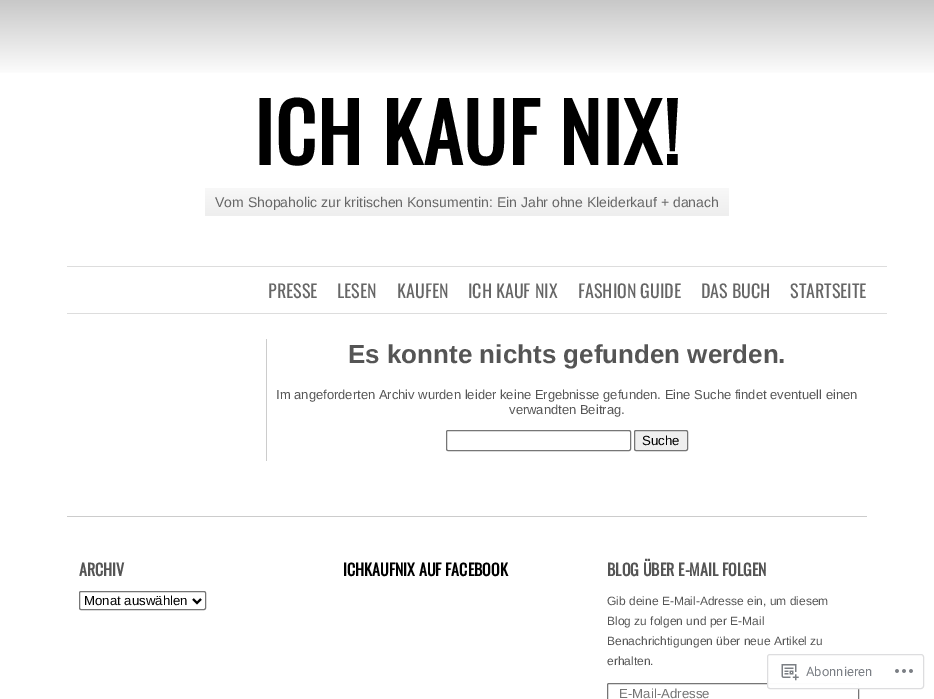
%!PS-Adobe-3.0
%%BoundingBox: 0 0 934 699
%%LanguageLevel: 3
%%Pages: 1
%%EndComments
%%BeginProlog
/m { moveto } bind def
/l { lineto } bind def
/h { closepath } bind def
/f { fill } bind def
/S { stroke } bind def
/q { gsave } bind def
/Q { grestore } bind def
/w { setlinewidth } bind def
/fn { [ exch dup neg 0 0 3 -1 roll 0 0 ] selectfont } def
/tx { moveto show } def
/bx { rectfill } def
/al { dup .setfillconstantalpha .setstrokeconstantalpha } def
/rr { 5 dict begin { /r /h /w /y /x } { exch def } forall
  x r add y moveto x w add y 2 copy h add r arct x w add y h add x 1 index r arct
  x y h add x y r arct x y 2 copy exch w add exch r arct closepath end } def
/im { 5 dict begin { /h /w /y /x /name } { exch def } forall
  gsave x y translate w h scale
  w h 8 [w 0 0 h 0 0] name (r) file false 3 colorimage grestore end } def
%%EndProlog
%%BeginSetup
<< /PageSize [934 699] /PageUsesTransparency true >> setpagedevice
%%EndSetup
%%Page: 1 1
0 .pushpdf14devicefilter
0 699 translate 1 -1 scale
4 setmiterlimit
1 setgray
0 0 934 699 bx
q 0 0 m 934 0 l 934 73 l 0 73 l h clip newpath
<< /ShadingType 2 /ColorSpace /DeviceRGB /Coords [467 0 467 699] /Extend [true true] /Function << /FunctionType 3 /Domain [0 1] /Functions [<< /FunctionType 2 /Domain [0 1] /C0 [0.784 0.784 0.784] /C1 [1 1 1] /N 1 >> << /FunctionType 2 /Domain [0 1] /C0 [1 1 1] /C1 [1 1 1] /N 1 >>] /Bounds [0.11] /Encode [0 1 0 1] >> >> shfill Q
/Oswald-Bold 80 fn
0 setgray
254 165 m 1 0 (ICH KAUF NIX!) ashow
q 205 188 524 28 3 rr clip newpath
<< /ShadingType 2 /ColorSpace /DeviceRGB /Coords [467 188 467 216] /Extend [true true] /Function << /FunctionType 2 /Domain [0 1] /C0 [0.973 0.973 0.973] /C1 [0.933 0.933 0.933] /N 1 >> >> shfill Q
/LiberationSans-Regular 14 fn
0.4 setgray
(Vom Shopaholic zur kritischen Konsumentin: Ein Jahr ohne Kleiderkauf + danach) 215 207 tx
0.867 setgray
67 266 820 1 bx
67 313 820 1 bx
/Oswald-Regular 18 fn
0.4 setgray
(PRESSE) 268 298 tx
(LESEN) 337 298 tx
(KAUFEN) 397 298 tx
(ICH KAUF NIX) 468 298 tx
(FASHION GUIDE) 578 298 tx
(DAS BUCH) 701 298 tx
(STARTSEITE) 790 298 tx
0.8 setgray
266 339 1 122 bx
/LiberationSans-Bold 26 fn
0.333 setgray
(Es konnte nichts gefunden werden.) 348 363 tx
/LiberationSans-Regular 13 fn
(Im angeforderten Archiv wurden leider keine Ergebnisse gefunden. Eine Suche findet eventuell einen) 276 399 tx
(verwandten Beitrag.) 509 414 tx
0.463 setgray
446.5 430.5 184 20 1.5 rr S
0.937 setgray
634.5 430.5 53 20 1.5 rr q f Q
0.463 setgray
S
/LiberationSans-Regular 13.25 fn
0 setgray
(Suche) 642 445 tx
0.8 setgray
67 516 800 1 bx
/Oswald-Bold 16 fn
0.333 setgray
(ARCHIV) 79 576 tx
0.463 setgray
79.5 591.5 126 18 1.5 rr S
0 setgray
2 w
193 599 m 197 603 l 201 599 l S
/LiberationSans-Regular 13.25 fn
(Monat auswählen) 84 605 tx
/Oswald-Bold 16 fn
(ICHKAUFNIX AUF FACEBOOK) 343 576 tx
0.333 setgray
(BLOG ÜBER E-MAIL FOLGEN) 607 576 tx
/LiberationSans-Regular 12 fn
(Gib deine E-Mail-Adresse ein, um diesem) 607 605 tx
(Blog zu folgen und per E-Mail) 607 625 tx
(Benachrichtigungen über neue Artikel zu) 607 645 tx
(erhalten.) 607 665 tx
0.463 setgray
1 w
607.5 683.5 251 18 1.5 rr S
/LiberationSans-Regular 13.25 fn
0.459 setgray
(E-Mail-Adresse) 619 698 tx
0.98 al
1 setgray
767 654 157 35 3 rr f
0.863 0.863 0.871 setrgbcolor
767.5 654.5 156 34 2.5 rr S
1 al
(image0.raw) 781 664 18 17 im
/Roboto-Regular 13 fn
0.482 0.498 0.522 setrgbcolor
(Abonnieren) 806 676 tx
(image1.raw) 895 669 18 4 im
.poppdf14devicefilter showpage
%%EOF
